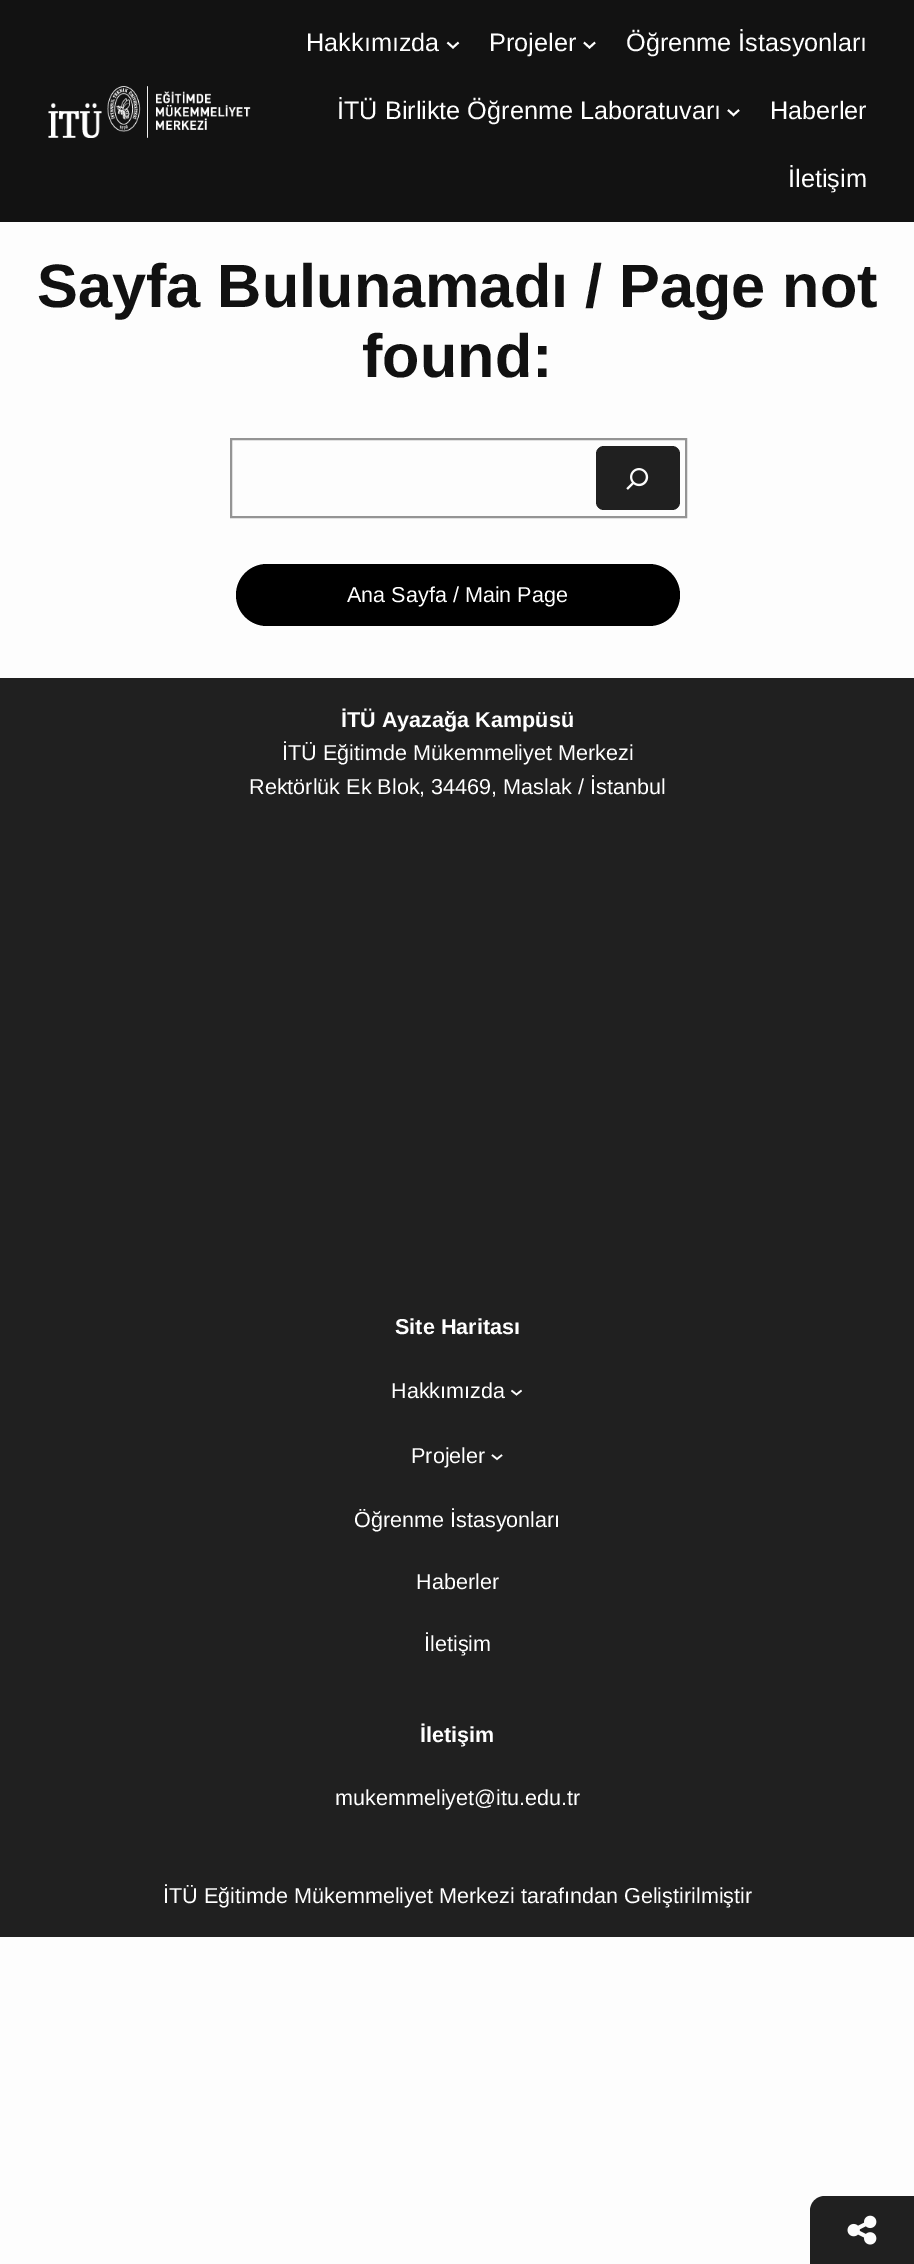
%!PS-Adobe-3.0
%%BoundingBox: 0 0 914 2264
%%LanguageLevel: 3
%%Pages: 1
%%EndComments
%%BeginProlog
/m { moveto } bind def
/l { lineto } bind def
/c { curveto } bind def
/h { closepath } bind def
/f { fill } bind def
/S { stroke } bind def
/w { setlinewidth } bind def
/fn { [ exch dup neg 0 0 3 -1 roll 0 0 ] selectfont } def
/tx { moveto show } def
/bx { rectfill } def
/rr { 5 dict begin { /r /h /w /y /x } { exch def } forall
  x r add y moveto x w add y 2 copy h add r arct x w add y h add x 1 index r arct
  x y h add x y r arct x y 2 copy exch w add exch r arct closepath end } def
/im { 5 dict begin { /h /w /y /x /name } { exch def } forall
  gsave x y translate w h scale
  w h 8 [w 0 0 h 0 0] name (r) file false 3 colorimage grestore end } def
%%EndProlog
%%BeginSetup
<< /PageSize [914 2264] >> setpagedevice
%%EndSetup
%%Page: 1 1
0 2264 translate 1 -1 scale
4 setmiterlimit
0.992 setgray
0 0 914 2264 bx
0.071 setgray
0 0 914 222 bx
(image0.raw) 48 86 203 52 im
/LiberationSans-Regular 25.25 fn
1 setgray
(Hakkımızda) 306 51 tx
1.9 w
447.5 42.5 m 453 47.5 l 458.5 42.5 l S
(Projeler) 489 51 tx
584 42.5 m 589.5 47.5 l 595 42.5 l S
(Öğrenme İstasyonları) 626 51 tx
(İTÜ Birlikte Öğrenme Laboratuvarı) 337 119 tx
728 110 m 733.5 115 l 739 110 l S
(Haberler) 770 119 tx
(İletişim) 788 187 tx
/LiberationSans-Bold 61.25 fn
0.067 setgray
(Sayfa Bulunamadı / Page not) 37 307 tx
(found:) 362 377 tx
0.58 setgray
2 w
231 439 455 78 rectstroke
0.125 setgray
596 446 84 64 8 rr f
(image1.raw) 626 468 23 22 im
0 setgray
236 564 444 62 31 rr f
/LiberationSans-Regular 21.6 fn
1 setgray
(Ana Sayfa / Main Page) 347 602 tx
0.125 setgray
0 678 914 1259 bx
/LiberationSans-Bold 21.6 fn
1 setgray
(İTÜ Ayazağa Kampüsü) 341 727 tx
/LiberationSans-Regular 21.6 fn
(İTÜ Eğitimde Mükemmeliyet Merkezi) 282 760 tx
(Rektörlük Ek Blok, 34469, Maslak / İstanbul) 249 794 tx
/LiberationSans-Bold 21.6 fn
(Site Haritası) 395 1334 tx
/LiberationSans-Regular 21.6 fn
(Hakkımızda) 391 1398 tx
0.992 setgray
1.6 w
511.5 1390.5 m 516.5 1394.5 l 521.5 1390.5 l S
1 setgray
(Projeler) 411 1463 tx
0.992 setgray
492 1455 m 497 1459 l 502 1455 l S
1 setgray
(Öğrenme İstasyonları) 354 1527 tx
(Haberler) 416 1589 tx
(İletişim) 424 1651 tx
/LiberationSans-Bold 21.6 fn
(İletişim) 420 1742 tx
/LiberationSans-Regular 21.6 fn
(mukemmeliyet@itu.edu.tr) 335 1805 tx
(İTÜ Eğitimde Mükemmeliyet Merkezi tarafından Geliştirilmiştir) 163 1903 tx
0.125 setgray
825 2196 m 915 2196 l 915 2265 l 810 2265 l 810 2211 l 810 2202.5 816.5 2196 825 2196 c h f
(image2.raw) 847 2215 30 30 im
showpage
%%EOF
